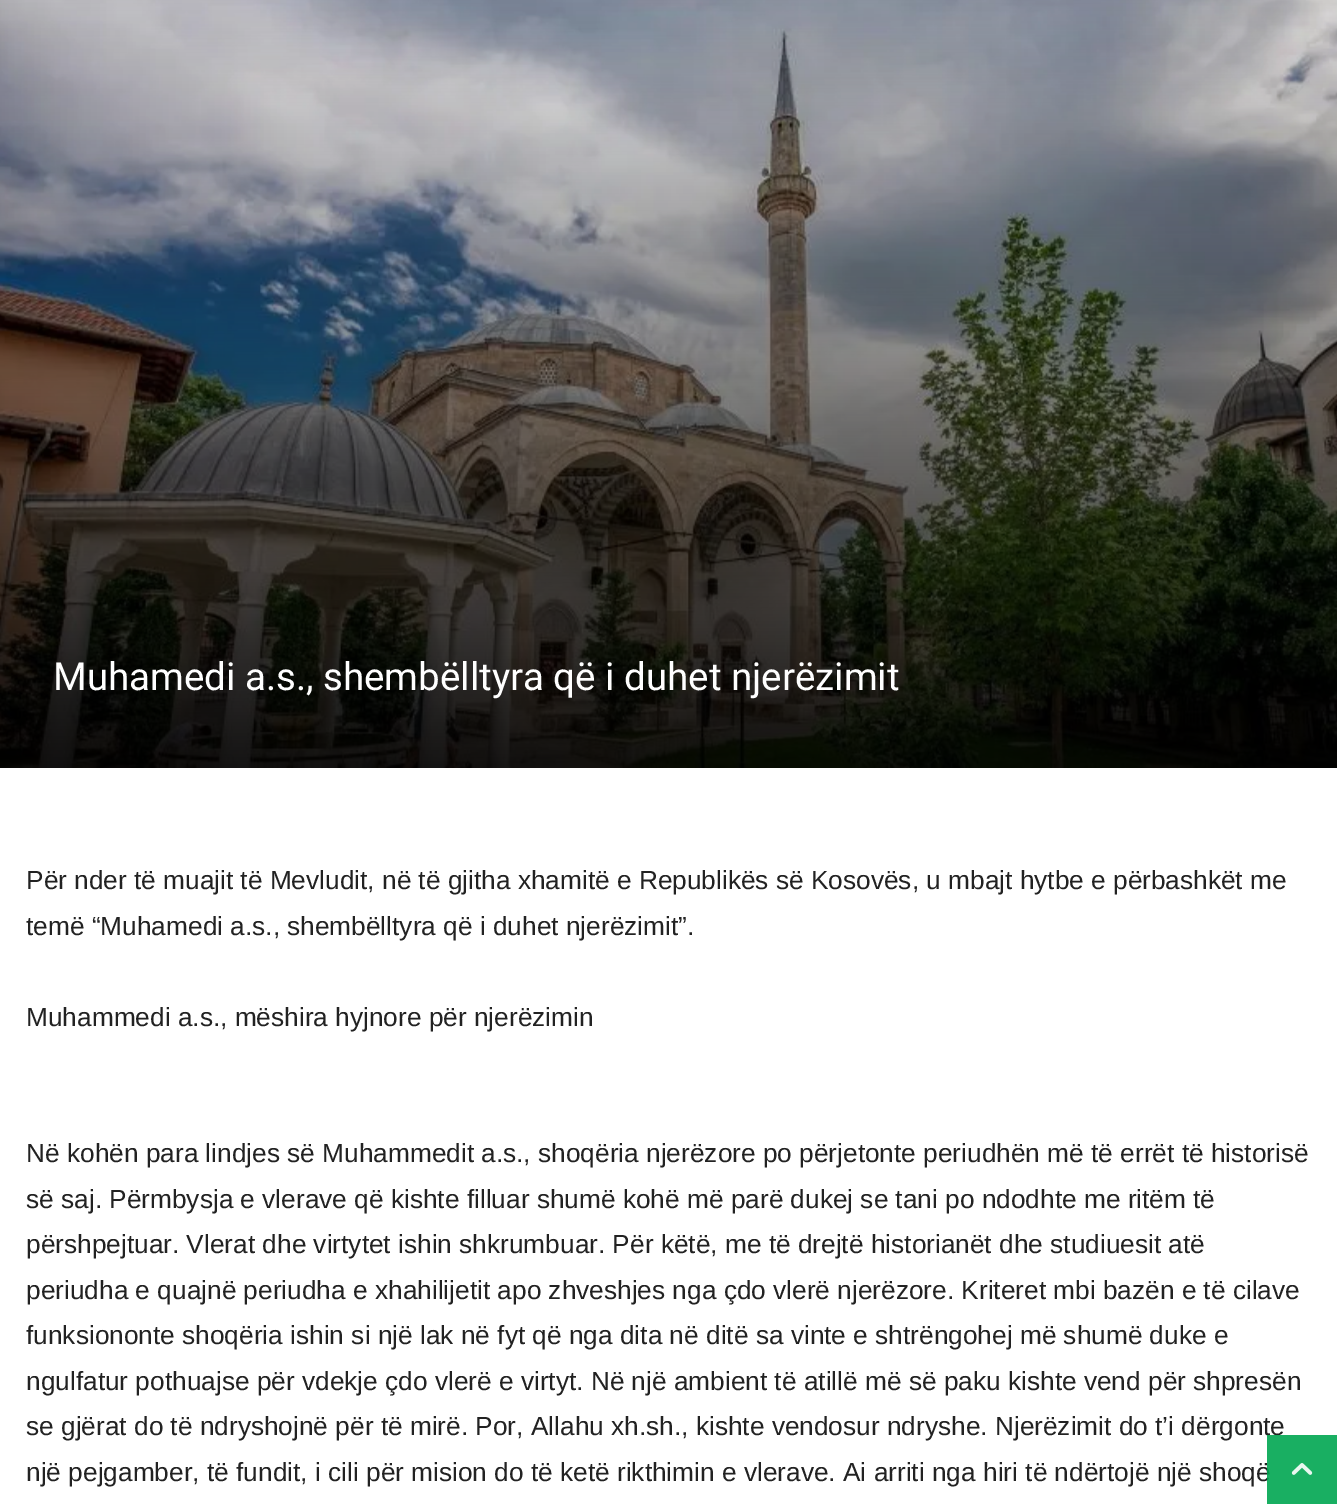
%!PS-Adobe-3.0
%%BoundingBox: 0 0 1337 1504
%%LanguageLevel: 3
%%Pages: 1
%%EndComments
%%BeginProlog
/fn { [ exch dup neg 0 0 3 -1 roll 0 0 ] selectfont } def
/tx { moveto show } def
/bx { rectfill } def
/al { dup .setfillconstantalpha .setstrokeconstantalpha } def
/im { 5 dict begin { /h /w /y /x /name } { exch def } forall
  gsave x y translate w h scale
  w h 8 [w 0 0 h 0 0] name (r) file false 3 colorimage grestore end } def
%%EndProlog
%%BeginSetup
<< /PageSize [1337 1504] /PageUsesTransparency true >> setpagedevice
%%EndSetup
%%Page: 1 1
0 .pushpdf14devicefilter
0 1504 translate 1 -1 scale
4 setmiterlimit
1 setgray
0 0 1337 1504 bx
(image0.raw) 0 0 1337 768 im
/Roboto-Regular 38.5 fn
(Muhamedi a.s., shembëlltyra që i duhet njerëzimit) 53 690 tx
/LiberationSans-Regular 26.25 fn
0.133 setgray
(Për nder të muajit të Mevludit, në të gjitha xhamitë e Republikës së Kosovës, u mbajt hytbe e përbashkët me) 26 889 tx
(temë “Muhamedi a.s., shembëlltyra që i duhet njerëzimit”.) 26 935 tx
(Muhammedi a.s., mëshira hyjnore për njerëzimin) 26 1026 tx
(Në kohën para lindjes së Muhammedit a.s., shoqëria njerëzore po përjetonte periudhën më të errët të historisë) 26 1162 tx
(së saj. Përmbysja e vlerave që kishte filluar shumë kohë më parë dukej se tani po ndodhte me ritëm të) 26 1208 tx
(përshpejtuar. Vlerat dhe virtytet ishin shkrumbuar. Për këtë, me të drejtë historianët dhe studiuesit atë) 26 1253 tx
(periudha e quajnë periudha e xhahilijetit apo zhveshjes nga çdo vlerë njerëzore. Kriteret mbi bazën e të cilave) 26 1299 tx
(funksiononte shoqëria ishin si një lak në fyt që nga dita në ditë sa vinte e shtrëngohej më shumë duke e) 26 1344 tx
(ngulfatur pothuajse për vdekje çdo vlerë e virtyt. Në një ambient të atillë më së paku kishte vend për shpresën) 26 1390 tx
(se gjërat do të ndryshojnë për të mirë. Por, Allahu xh.sh., kishte vendosur ndryshe. Njerëzimit do t’i dërgonte) 26 1435 tx
(një pejgamber, të fundit, i cili për mision do të ketë rikthimin e vlerave. Ai arriti nga hiri të ndërtojë një shoqë) 26 1481 tx
0.9 al
0 0.651 0.318 setrgbcolor
1267 1435 70 69 bx
1 al
(image1.raw) 1291 1463 22 12 im
.poppdf14devicefilter showpage
%%EOF
